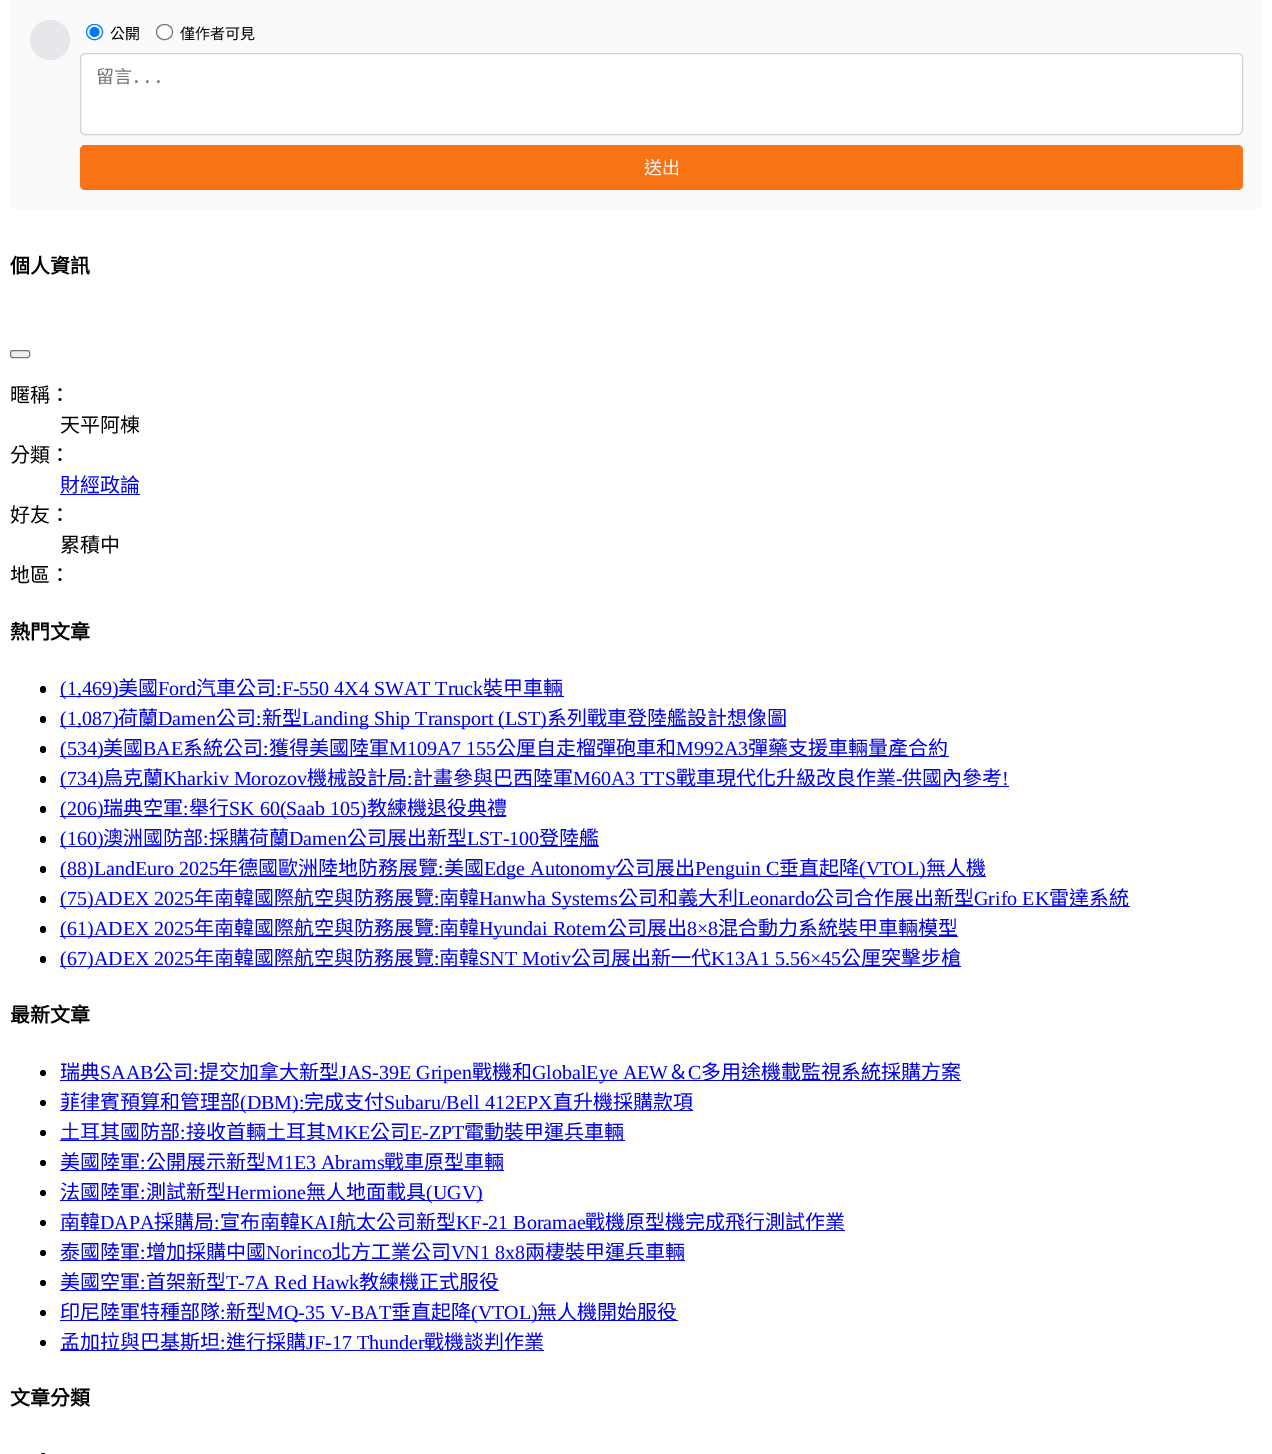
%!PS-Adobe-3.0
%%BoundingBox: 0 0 1272 1454
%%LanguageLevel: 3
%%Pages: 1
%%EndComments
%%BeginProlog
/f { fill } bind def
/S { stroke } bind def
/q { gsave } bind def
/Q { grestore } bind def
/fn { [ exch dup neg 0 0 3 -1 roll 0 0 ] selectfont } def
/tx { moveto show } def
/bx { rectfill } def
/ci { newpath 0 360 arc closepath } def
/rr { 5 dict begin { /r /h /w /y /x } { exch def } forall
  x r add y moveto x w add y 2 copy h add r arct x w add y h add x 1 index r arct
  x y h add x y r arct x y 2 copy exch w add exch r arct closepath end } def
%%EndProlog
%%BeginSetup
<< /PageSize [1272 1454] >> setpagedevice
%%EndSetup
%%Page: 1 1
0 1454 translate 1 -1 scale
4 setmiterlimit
1 setgray
0 0 1272 1454 bx
0.98 setgray
10 -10 1253 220 10 rr f
0.898 0.906 0.922 setrgbcolor
50 40 20 ci f
1 setgray
86.5 24.5 16 15 7.5 rr q f Q
0 0.459 1 setrgbcolor
S
94.5 32 5 ci f
/NotoSansCJKTC-Regular 15 fn
0 setgray
(公開) 110 39 tx
1 setgray
156.5 24.5 16 15 7.5 rr q f Q
0.463 setgray
S
0 setgray
(僅作者可見) 180 39 tx
1 setgray
80.5 53.5 1162 81 4.5 rr q f Q
0.82 0.835 0.859 setrgbcolor
S
/NotoSansCJKTC-Regular 18 fn
0.459 setgray
(留言) 96 83 tx
/DejaVuSansMono-Regular 18 fn
(...) 131 83 tx
0.976 0.451 0.086 setrgbcolor
80 145 1163 45 5 rr f
/NotoSansCJKTC-Regular 18 fn
1 setgray
(送出) 644 174 tx
/NotoSansCJKTC-Bold 20 fn
0 setgray
(個人資訊) 10 273 tx
0.937 setgray
10.5 350.5 19 7 2 rr q f Q
0.463 setgray
S
/NotoSansCJKTC-Regular 20 fn
0 setgray
(暱稱：) 10 402 tx
(天平阿棟) 60 432 tx
(分類：) 10 462 tx
0 0 0.933 setrgbcolor
(財經政論) 60 492 tx
60 494 80 1 bx
0 setgray
(好友：) 10 522 tx
(累積中) 60 552 tx
(地區：) 10 582 tx
/NotoSansCJKTC-Bold 20 fn
(熱門文章) 10 639 tx
40 686 6 7 3 rr f
0 0 0.933 setrgbcolor
60 696 6 1 bx
/LiberationSerif-Regular 20 fn
(\() 60 695 tx
66 696 498 1 bx
(1,469\)) 67 695 tx
/NotoSansCJKTC-Regular 20 fn
(美國) 118 695 tx
/LiberationSerif-Regular 20 fn
(Ford) 158 695 tx
/NotoSansCJKTC-Regular 20 fn
(汽車公司) 196 695 tx
/LiberationSerif-Regular 20 fn
(:F-550 4X4 SWAT Truck) 276 695 tx
/NotoSansCJKTC-Regular 20 fn
(裝甲車輛) 483 695 tx
0 setgray
40 716 6 7 3 rr f
0 0 0.933 setrgbcolor
60 726 6 1 bx
/LiberationSerif-Regular 20 fn
(\() 60 725 tx
66 726 45 1 bx
(1,087) 67 725 tx
111 726 675 1 bx
(\)) 112 725 tx
/NotoSansCJKTC-Regular 20 fn
(荷蘭) 118 725 tx
/LiberationSerif-Regular 20 fn
(Damen) 158 725 tx
/NotoSansCJKTC-Regular 20 fn
(公司) 216 725 tx
/LiberationSerif-Regular 20 fn
(:) 256 725 tx
/NotoSansCJKTC-Regular 20 fn
(新型) 262 725 tx
/LiberationSerif-Regular 20 fn
(Landing Ship Transport \(LST\)) 302 725 tx
/NotoSansCJKTC-Regular 20 fn
(系列戰車登陸艦設計想像圖) 547 725 tx
0 setgray
40 746 6 7 3 rr f
0 0 0.933 setrgbcolor
60 756 6 1 bx
/LiberationSerif-Regular 20 fn
(\(534) 60 755 tx
66 756 883 1 bx
(\)) 97 755 tx
/NotoSansCJKTC-Regular 20 fn
(美國) 103 755 tx
/LiberationSerif-Regular 20 fn
(BAE) 143 755 tx
/NotoSansCJKTC-Regular 20 fn
(系統公司) 183 755 tx
/LiberationSerif-Regular 20 fn
(:) 263 755 tx
/NotoSansCJKTC-Regular 20 fn
(獲得美國陸軍) 269 755 tx
/LiberationSerif-Regular 20 fn
(M109A7 155) 389 755 tx
/NotoSansCJKTC-Regular 20 fn
(公厘自走榴彈砲車和) 496 755 tx
/LiberationSerif-Regular 20 fn
(M992A3) 676 755 tx
/NotoSansCJKTC-Regular 20 fn
(彈藥支援車輛量產合約) 748 755 tx
0 setgray
40 776 6 7 3 rr f
0 0 0.933 setrgbcolor
60 786 6 1 bx
/LiberationSerif-Regular 20 fn
(\(734) 60 785 tx
66 786 943 1 bx
(\)) 97 785 tx
/NotoSansCJKTC-Regular 20 fn
(烏克蘭) 103 785 tx
/LiberationSerif-Regular 20 fn
(Kharkiv Morozov) 163 785 tx
/NotoSansCJKTC-Regular 20 fn
(機械設計局) 307 785 tx
/LiberationSerif-Regular 20 fn
(:) 407 785 tx
/NotoSansCJKTC-Regular 20 fn
(計畫參與巴西陸軍) 413 785 tx
/LiberationSerif-Regular 20 fn
(M60A3 TTS) 573 785 tx
/NotoSansCJKTC-Regular 20 fn
(戰車現代化升級改良作業) 676 785 tx
/LiberationSerif-Regular 20 fn
(-) 896 785 tx
/NotoSansCJKTC-Regular 20 fn
(供國內參考) 902 785 tx
/LiberationSerif-Regular 20 fn
(!) 1002 785 tx
0 setgray
40 806 6 7 3 rr f
0 0 0.933 setrgbcolor
60 816 6 1 bx
(\(206) 60 815 tx
66 816 440 1 bx
(\)) 97 815 tx
/NotoSansCJKTC-Regular 20 fn
(瑞典空軍) 103 815 tx
/LiberationSerif-Regular 20 fn
(:) 183 815 tx
/NotoSansCJKTC-Regular 20 fn
(舉行) 189 815 tx
/LiberationSerif-Regular 20 fn
(SK 60\(Saab 105\)) 229 815 tx
/NotoSansCJKTC-Regular 20 fn
(教練機退役典禮) 367 815 tx
0 setgray
40 836 6 7 3 rr f
0 0 0.933 setrgbcolor
60 846 6 1 bx
/LiberationSerif-Regular 20 fn
(\(160) 60 845 tx
66 846 533 1 bx
(\)) 97 845 tx
/NotoSansCJKTC-Regular 20 fn
(澳洲國防部) 103 845 tx
/LiberationSerif-Regular 20 fn
(:) 203 845 tx
/NotoSansCJKTC-Regular 20 fn
(採購荷蘭) 209 845 tx
/LiberationSerif-Regular 20 fn
(Damen) 289 845 tx
/NotoSansCJKTC-Regular 20 fn
(公司展出新型) 347 845 tx
/LiberationSerif-Regular 20 fn
(LST-100) 467 845 tx
/NotoSansCJKTC-Regular 20 fn
(登陸艦) 539 845 tx
0 setgray
40 866 6 7 3 rr f
0 0 0.933 setrgbcolor
60 876 6 1 bx
/LiberationSerif-Regular 20 fn
(\(88) 60 875 tx
66 876 920 1 bx
(\)LandEuro 2025) 87 875 tx
/NotoSansCJKTC-Regular 20 fn
(年德國歐洲陸地防務展覽) 218 875 tx
/LiberationSerif-Regular 20 fn
(:) 438 875 tx
/NotoSansCJKTC-Regular 20 fn
(美國) 444 875 tx
/LiberationSerif-Regular 20 fn
(Edge Autonomy) 484 875 tx
/NotoSansCJKTC-Regular 20 fn
(公司展出) 615 875 tx
/LiberationSerif-Regular 20 fn
(Penguin C) 695 875 tx
/NotoSansCJKTC-Regular 20 fn
(垂直起降) 779 875 tx
/LiberationSerif-Regular 20 fn
(\(VTOL\)) 859 875 tx
/NotoSansCJKTC-Regular 20 fn
(無人機) 926 875 tx
0 setgray
40 896 6 7 3 rr f
0 0 0.933 setrgbcolor
60 906 6 1 bx
/LiberationSerif-Regular 20 fn
(\(75) 60 905 tx
66 906 1064 1 bx
(\)ADEX 2025) 87 905 tx
/NotoSansCJKTC-Regular 20 fn
(年南韓國際航空與防務展覽) 194 905 tx
/LiberationSerif-Regular 20 fn
(:) 434 905 tx
/NotoSansCJKTC-Regular 20 fn
(南韓) 439 905 tx
/LiberationSerif-Regular 20 fn
(Hanwha Systems) 479 905 tx
/NotoSansCJKTC-Regular 20 fn
(公司和義大利) 618 905 tx
/LiberationSerif-Regular 20 fn
(Leonardo) 738 905 tx
/NotoSansCJKTC-Regular 20 fn
(公司合作展出新型) 814 905 tx
/LiberationSerif-Regular 20 fn
(Grifo EK) 974 905 tx
/NotoSansCJKTC-Regular 20 fn
(雷達系統) 1049 905 tx
0 setgray
40 926 6 7 3 rr f
0 0 0.933 setrgbcolor
60 936 6 1 bx
/LiberationSerif-Regular 20 fn
(\(61) 60 935 tx
66 936 892 1 bx
(\)ADEX 2025) 87 935 tx
/NotoSansCJKTC-Regular 20 fn
(年南韓國際航空與防務展覽) 194 935 tx
/LiberationSerif-Regular 20 fn
(:) 434 935 tx
/NotoSansCJKTC-Regular 20 fn
(南韓) 439 935 tx
/LiberationSerif-Regular 20 fn
(Hyundai Rotem) 479 935 tx
/NotoSansCJKTC-Regular 20 fn
(公司展出) 607 935 tx
/LiberationSerif-Regular 20 fn
(8×8) 687 935 tx
/NotoSansCJKTC-Regular 20 fn
(混合動力系統裝甲車輛模型) 718 935 tx
0 setgray
40 956 6 7 3 rr f
0 0 0.933 setrgbcolor
60 966 6 1 bx
/LiberationSerif-Regular 20 fn
(\(67) 60 965 tx
66 966 895 1 bx
(\)ADEX 2025) 87 965 tx
/NotoSansCJKTC-Regular 20 fn
(年南韓國際航空與防務展覽) 194 965 tx
/LiberationSerif-Regular 20 fn
(:) 434 965 tx
/NotoSansCJKTC-Regular 20 fn
(南韓) 439 965 tx
/LiberationSerif-Regular 20 fn
(SNT Motiv) 479 965 tx
/NotoSansCJKTC-Regular 20 fn
(公司展出新一代) 571 965 tx
/LiberationSerif-Regular 20 fn
(K13A1 5.56×45) 711 965 tx
/NotoSansCJKTC-Regular 20 fn
(公厘突擊步槍) 841 965 tx
/NotoSansCJKTC-Bold 20 fn
0 setgray
(最新文章) 10 1022 tx
43 1073 3 ci f
0 0 0.933 setrgbcolor
60 1080 901 1 bx
/NotoSansCJKTC-Regular 20 fn
(瑞典) 60 1079 tx
/LiberationSerif-Regular 20 fn
(SAAB) 100 1079 tx
/NotoSansCJKTC-Regular 20 fn
(公司) 153 1079 tx
/LiberationSerif-Regular 20 fn
(:) 193 1079 tx
/NotoSansCJKTC-Regular 20 fn
(提交加拿大新型) 199 1079 tx
/LiberationSerif-Regular 20 fn
(JAS-39E Gripen) 339 1079 tx
/NotoSansCJKTC-Regular 20 fn
(戰機和) 472 1079 tx
/LiberationSerif-Regular 20 fn
(GlobalEye AEW) 532 1079 tx
/NotoSansCJKTC-Regular 20 fn
(＆) 668 1079 tx
/LiberationSerif-Regular 20 fn
(C) 688 1079 tx
/NotoSansCJKTC-Regular 20 fn
(多用途機載監視系統採購方案) 701 1079 tx
0 setgray
43 1103 3 ci f
0 0 0.933 setrgbcolor
60 1110 633 1 bx
(菲律賓預算和管理部) 60 1109 tx
/LiberationSerif-Regular 20 fn
(\(DBM\):) 240 1109 tx
/NotoSansCJKTC-Regular 20 fn
(完成支付) 304 1109 tx
/LiberationSerif-Regular 20 fn
(Subaru/Bell 412EPX) 384 1109 tx
/NotoSansCJKTC-Regular 20 fn
(直升機採購款項) 553 1109 tx
0 setgray
43 1133 3 ci f
0 0 0.933 setrgbcolor
60 1140 565 1 bx
(土耳其國防部) 60 1139 tx
/LiberationSerif-Regular 20 fn
(:) 180 1139 tx
/NotoSansCJKTC-Regular 20 fn
(接收首輛土耳其) 186 1139 tx
/LiberationSerif-Regular 20 fn
(MKE) 326 1139 tx
/NotoSansCJKTC-Regular 20 fn
(公司) 370 1139 tx
/LiberationSerif-Regular 20 fn
(E-ZPT) 410 1139 tx
/NotoSansCJKTC-Regular 20 fn
(電動裝甲運兵車輛) 464 1139 tx
0 setgray
43 1163 3 ci f
0 0 0.933 setrgbcolor
60 1170 444 1 bx
(美國陸軍) 60 1169 tx
/LiberationSerif-Regular 20 fn
(:) 140 1169 tx
/NotoSansCJKTC-Regular 20 fn
(公開展示新型) 146 1169 tx
/LiberationSerif-Regular 20 fn
(M1E3 Abrams) 266 1169 tx
/NotoSansCJKTC-Regular 20 fn
(戰車原型車輛) 384 1169 tx
0 setgray
43 1193 3 ci f
0 0 0.933 setrgbcolor
60 1200 423 1 bx
(法國陸軍) 60 1199 tx
/LiberationSerif-Regular 20 fn
(:) 140 1199 tx
/NotoSansCJKTC-Regular 20 fn
(測試新型) 146 1199 tx
/LiberationSerif-Regular 20 fn
(Hermione) 226 1199 tx
/NotoSansCJKTC-Regular 20 fn
(無人地面載具) 306 1199 tx
/LiberationSerif-Regular 20 fn
(\(UGV\)) 426 1199 tx
0 setgray
43 1223 3 ci f
0 0 0.933 setrgbcolor
60 1230 785 1 bx
/NotoSansCJKTC-Regular 20 fn
(南韓) 60 1229 tx
/LiberationSerif-Regular 20 fn
(DAPA) 100 1229 tx
/NotoSansCJKTC-Regular 20 fn
(採購局) 154 1229 tx
/LiberationSerif-Regular 20 fn
(:) 214 1229 tx
/NotoSansCJKTC-Regular 20 fn
(宣布南韓) 220 1229 tx
/LiberationSerif-Regular 20 fn
(KAI) 300 1229 tx
/NotoSansCJKTC-Regular 20 fn
(航太公司新型) 336 1229 tx
/LiberationSerif-Regular 20 fn
(KF-21 Boramae) 456 1229 tx
/NotoSansCJKTC-Regular 20 fn
(戰機原型機完成飛行測試作業) 585 1229 tx
0 setgray
43 1253 3 ci f
0 0 0.933 setrgbcolor
60 1260 625 1 bx
(泰國陸軍) 60 1259 tx
/LiberationSerif-Regular 20 fn
(:) 140 1259 tx
/NotoSansCJKTC-Regular 20 fn
(增加採購中國) 146 1259 tx
/LiberationSerif-Regular 20 fn
(Norinco) 266 1259 tx
/NotoSansCJKTC-Regular 20 fn
(北方工業公司) 331 1259 tx
/LiberationSerif-Regular 20 fn
(VN1 8x8) 451 1259 tx
/NotoSansCJKTC-Regular 20 fn
(兩棲裝甲運兵車輛) 525 1259 tx
0 setgray
43 1283 3 ci f
0 0 0.933 setrgbcolor
60 1290 439 1 bx
(美國空軍) 60 1289 tx
/LiberationSerif-Regular 20 fn
(:) 140 1289 tx
/NotoSansCJKTC-Regular 20 fn
(首架新型) 146 1289 tx
/LiberationSerif-Regular 20 fn
(T-7A Red Hawk) 226 1289 tx
/NotoSansCJKTC-Regular 20 fn
(教練機正式服役) 359 1289 tx
0 setgray
43 1313 3 ci f
0 0 0.933 setrgbcolor
60 1320 618 1 bx
(印尼陸軍特種部隊) 60 1319 tx
/LiberationSerif-Regular 20 fn
(:) 220 1319 tx
/NotoSansCJKTC-Regular 20 fn
(新型) 226 1319 tx
/LiberationSerif-Regular 20 fn
(MQ-35 V-BAT) 266 1319 tx
/NotoSansCJKTC-Regular 20 fn
(垂直起降) 391 1319 tx
/LiberationSerif-Regular 20 fn
(\(VTOL\)) 471 1319 tx
/NotoSansCJKTC-Regular 20 fn
(無人機開始服役) 537 1319 tx
0 setgray
43 1343 3 ci f
0 0 0.933 setrgbcolor
60 1350 484 1 bx
(孟加拉與巴基斯坦) 60 1349 tx
/LiberationSerif-Regular 20 fn
(:) 220 1349 tx
/NotoSansCJKTC-Regular 20 fn
(進行採購) 226 1349 tx
/LiberationSerif-Regular 20 fn
(JF-17 Thunder) 306 1349 tx
/NotoSansCJKTC-Regular 20 fn
(戰機談判作業) 424 1349 tx
/NotoSansCJKTC-Bold 20 fn
0 setgray
(文章分類) 10 1405 tx
40 1453 6 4 3 rr f
showpage
%%EOF
